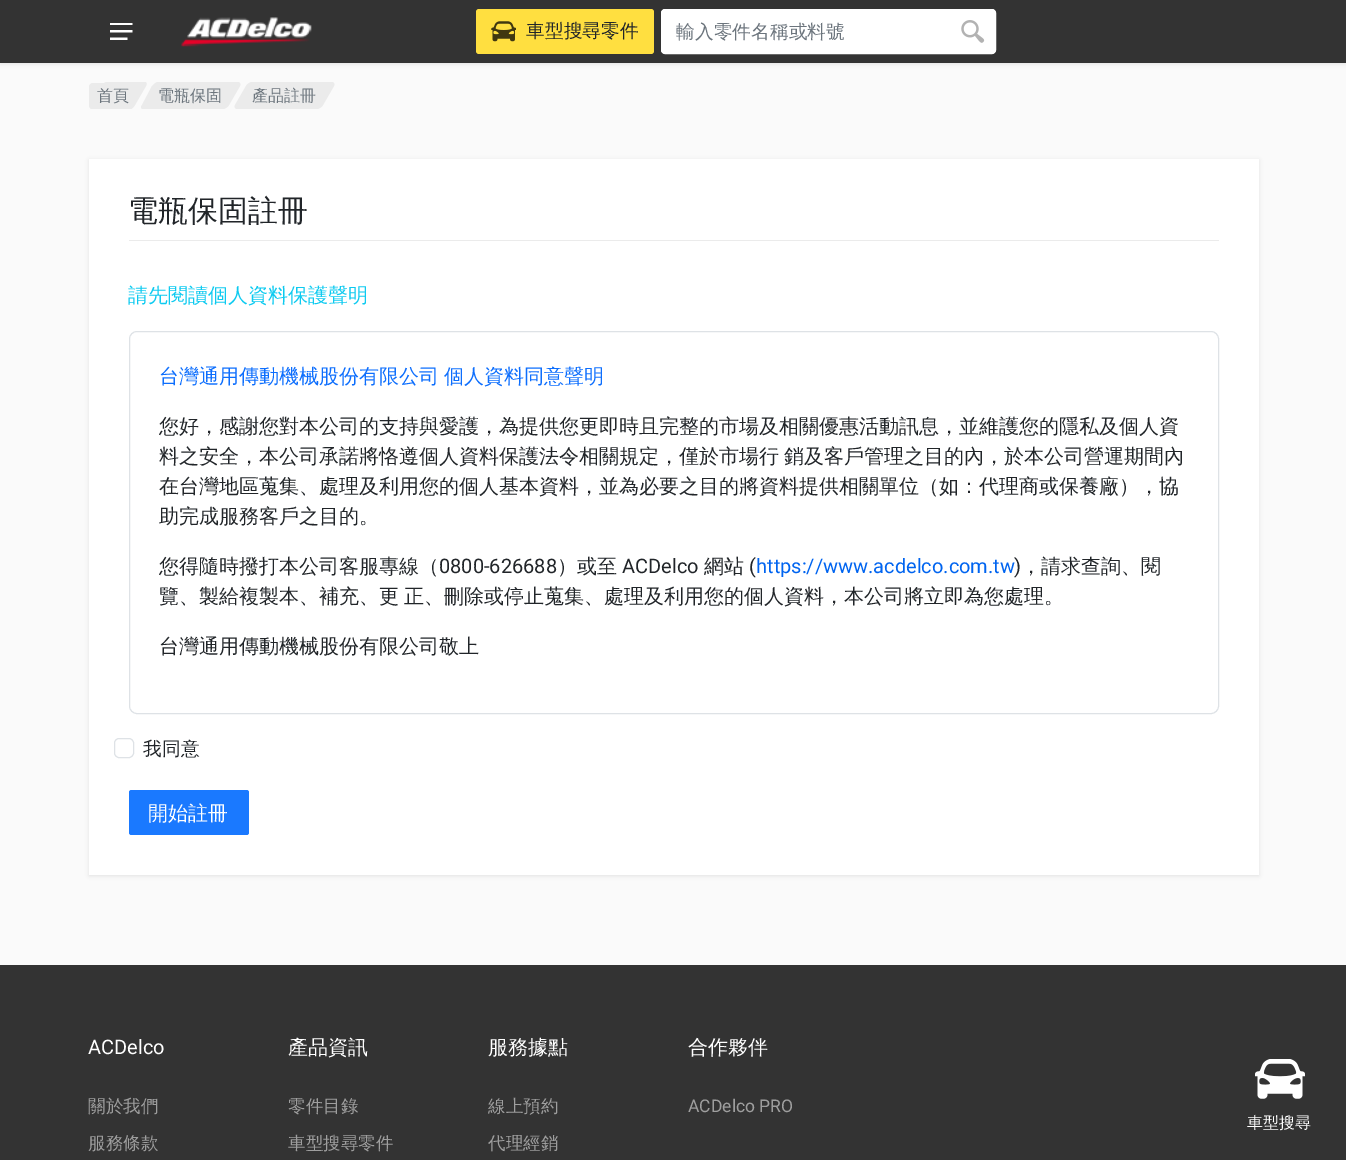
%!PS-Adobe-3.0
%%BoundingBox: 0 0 1346 1160
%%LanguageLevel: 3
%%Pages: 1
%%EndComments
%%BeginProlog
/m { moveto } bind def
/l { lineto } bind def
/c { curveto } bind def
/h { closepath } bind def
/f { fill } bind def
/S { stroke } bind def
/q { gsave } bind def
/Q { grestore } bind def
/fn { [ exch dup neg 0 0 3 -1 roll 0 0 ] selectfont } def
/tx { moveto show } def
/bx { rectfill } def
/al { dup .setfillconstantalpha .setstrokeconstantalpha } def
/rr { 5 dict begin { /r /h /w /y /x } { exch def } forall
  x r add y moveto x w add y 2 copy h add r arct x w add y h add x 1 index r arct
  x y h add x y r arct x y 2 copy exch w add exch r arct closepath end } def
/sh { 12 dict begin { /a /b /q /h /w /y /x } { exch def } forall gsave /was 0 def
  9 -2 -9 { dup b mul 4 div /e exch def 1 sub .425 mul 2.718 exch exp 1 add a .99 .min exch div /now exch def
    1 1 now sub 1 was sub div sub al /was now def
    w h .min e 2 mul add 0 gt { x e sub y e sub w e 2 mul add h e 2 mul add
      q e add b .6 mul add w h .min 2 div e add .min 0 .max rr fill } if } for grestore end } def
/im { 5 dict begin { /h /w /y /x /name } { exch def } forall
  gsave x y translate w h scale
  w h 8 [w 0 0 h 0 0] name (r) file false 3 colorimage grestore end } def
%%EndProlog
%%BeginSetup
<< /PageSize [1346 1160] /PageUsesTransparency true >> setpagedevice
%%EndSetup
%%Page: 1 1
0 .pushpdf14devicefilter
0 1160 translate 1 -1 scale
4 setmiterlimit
0.98 setgray
0 0 1346 1160 bx
0 setgray
0 1 1346 63 0 2 0.09 sh
0.2 setgray
0 0 1346 63 bx
(image0.raw) 110 23 23 17 im
(image1.raw) 181 17 131 30 im
1 0.875 0.251 setrgbcolor
476 9 178 45 3 rr f
(image2.raw) 491 21 25 21 im
/WenQuanYiZenHei-Medium 18.75 fn
0.129 0.145 0.161 setrgbcolor
(車型搜尋零件) 526 37 tx
1 setgray
661.5 9.5 334 44 3.5 rr q f Q
S
0.424 0.459 0.49 setrgbcolor
(輸入零件名稱或料號) 676 38 tx
(image3.raw) 961 20 24 23 im
0.922 setgray
107 82 m 145 82 l 147 82 147 84 146 86 c 135 105 l 134 107 131 109 129 109 c 92 109 l 90 109 89 107 90 105 c 101 86 l 102 84 105 82 107 82 c h f
89 83 45 26 4 rr f
/WenQuanYiZenHei-Medium 16 fn
0.424 0.459 0.49 setrgbcolor
(首頁) 97 101 tx
0.922 setgray
158 82 m 238 82 l 240 82 241 84 240 86 c 229 105 l 228 107 225 109 223 109 c 143 109 l 141 109 140 107 142 105 c 152 86 l 154 84 156 82 158 82 c h f
0.424 0.459 0.49 setrgbcolor
(電瓶保固) 158 101 tx
0.922 setgray
252 82 m 332 82 l 334 82 335 84 334 86 c 323 105 l 322 107 319 109 317 109 c 237 109 l 235 109 234 107 235 105 c 246 86 l 247 84 250 82 252 82 c h f
0.424 0.459 0.49 setrgbcolor
(產品註冊) 252 101 tx
0 setgray
89 160 1170 716 0 2 0.09 sh
1 setgray
89 159 1170 716 bx
0.922 setgray
129 240 1090 1 bx
/WenQuanYiZenHei-Medium 30 fn
0.129 0.145 0.161 setrgbcolor
(電瓶保固註冊) 128 221 tx
/WenQuanYiZenHei-Medium 20 fn
0.051 0.792 0.941 setrgbcolor
(請先閱讀個人資料保護聲明) 128 302 tx
0.871 0.886 0.902 setrgbcolor
129.5 331.5 1089 382 7.5 rr S
0.051 0.431 0.992 setrgbcolor
159 383 m -1 0 32 (台灣通用傳動機械股份有限公司 個人資料同意聲明) widthshow
0.129 0.145 0.161 setrgbcolor
(您好，感謝您對本公司的支持與愛護，為提供您更即時且完整的市場及相關優惠活動訊息，並維護您的隱私及個人資) 159 433 tx
159 463 m -1 0 32 (料之安全，本公司承諾將恪遵個人資料保護法令相關規定，僅於市場行 銷及客戶管理之目的內，於本公司營運期間內) widthshow
(在台灣地區蒐集、處理及利用您的個人基本資料，並為必要之目的將資料提供相關單位（如：代理商或保養廠），協) 159 493 tx
(助完成服務客戶之目的。) 159 523 tx
(您得隨時撥打本公司客服專線（) 159 573 tx
/Roboto-Regular 20 fn
(0800-626688) 439 573 tx
/WenQuanYiZenHei-Medium 20 fn
(）或至) 557 573 tx
/Roboto-Regular 20 fn
(ACDelco) 622 573 tx
/WenQuanYiZenHei-Medium 20 fn
(網站) 704 573 tx
/Roboto-Regular 20 fn
(\() 749 573 tx
0 0.392 0.941 setrgbcolor
(https://www.acdelco.com.tw) 756 573 tx
0.129 0.145 0.161 setrgbcolor
(\)) 1014 573 tx
/WenQuanYiZenHei-Medium 20 fn
(，請求查詢、閱) 1021 573 tx
159 603 m -1 0 32 (覽、製給複製本、補充、更 正、刪除或停止蒐集、處理及利用您的個人資料，本公司將立即為您處理。) widthshow
(台灣通用傳動機械股份有限公司敬上) 159 653 tx
0.871 0.886 0.902 setrgbcolor
114.5 738.5 19 19 4.5 rr S
/WenQuanYiZenHei-Medium 18.75 fn
0.129 0.145 0.161 setrgbcolor
(我同意) 143 755 tx
0.102 0.475 1 setrgbcolor
129 790 120 45 2.5 rr f
/WenQuanYiZenHei-Medium 20 fn
1 setgray
(開始註冊) 148 820 tx
0.2 setgray
0 965 1346 195 bx
/Roboto-Regular 20 fn
1 setgray
(ACDelco) 88 1054 tx
/WenQuanYiZenHei-Medium 17.5 fn
0.62 setgray
(關於我們) 88 1112 tx
(服務條款) 88 1149 tx
/WenQuanYiZenHei-Medium 20 fn
1 setgray
(產品資訊) 288 1054 tx
/WenQuanYiZenHei-Medium 17.5 fn
0.62 setgray
(零件目錄) 288 1112 tx
(車型搜尋零件) 288 1149 tx
/WenQuanYiZenHei-Medium 20 fn
1 setgray
(服務據點) 488 1054 tx
/WenQuanYiZenHei-Medium 17.5 fn
0.62 setgray
(線上預約) 488 1112 tx
(代理經銷) 488 1149 tx
/WenQuanYiZenHei-Medium 20 fn
1 setgray
(合作夥伴) 688 1054 tx
/Roboto-Regular 17.5 fn
0.62 setgray
(ACDelco PRO) 688 1112 tx
(image4.raw) 1255 1059 50 40 im
/WenQuanYiZenHei-Medium 16 fn
1 setgray
(車型搜尋) 1247 1128 tx
.poppdf14devicefilter showpage
%%EOF
